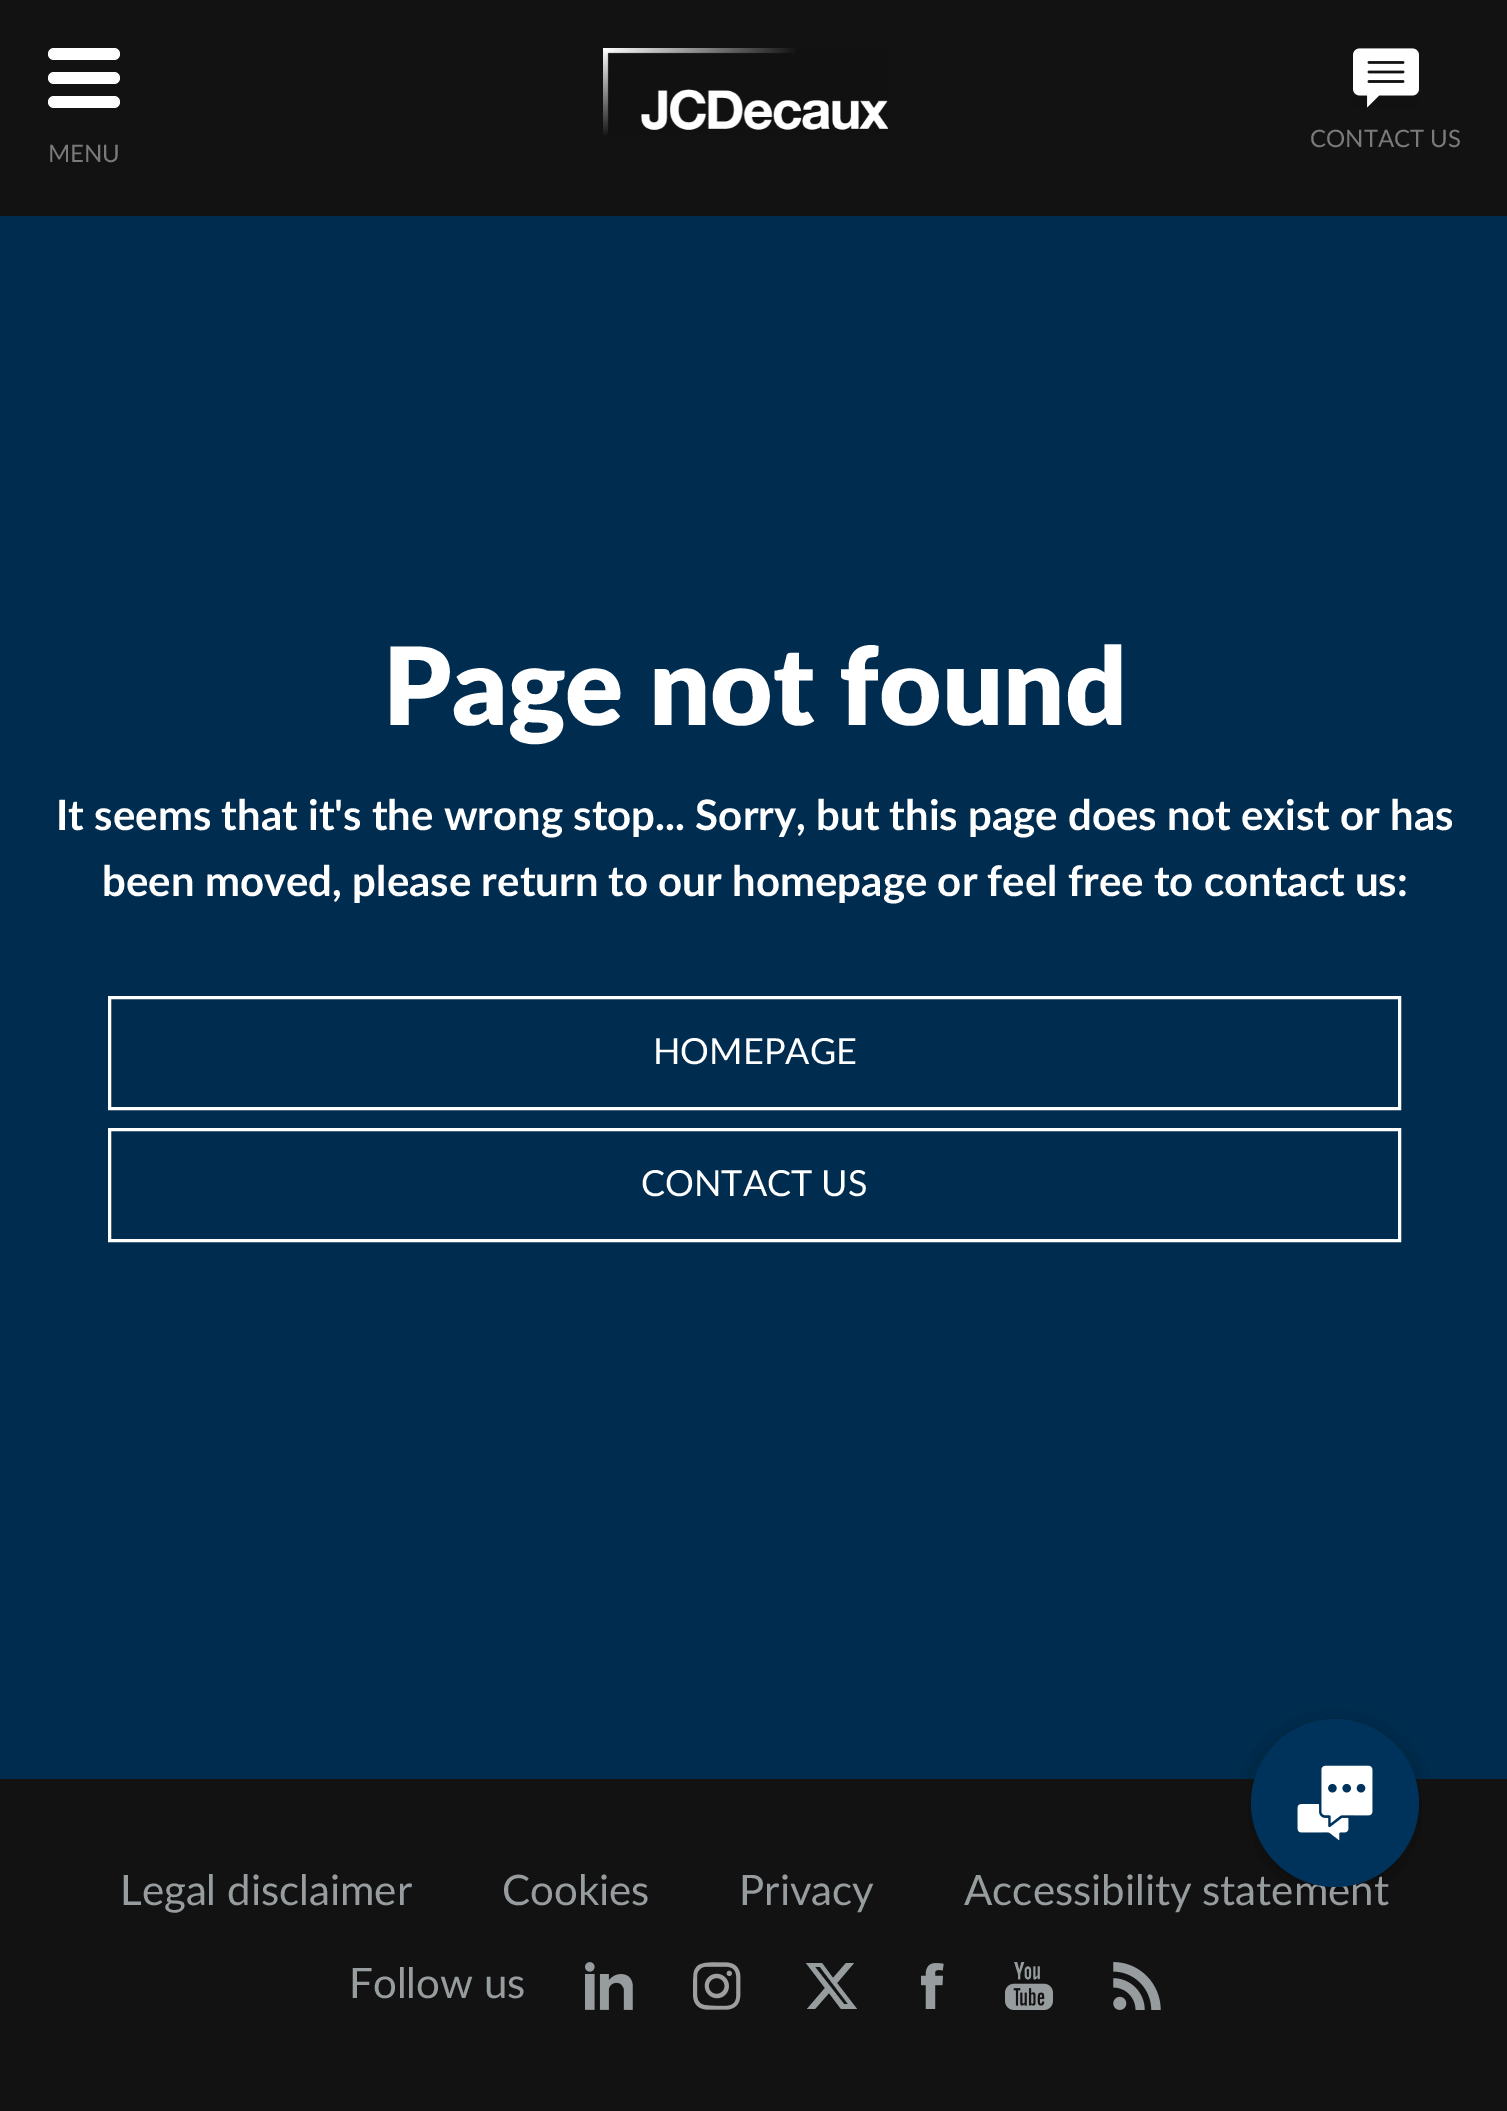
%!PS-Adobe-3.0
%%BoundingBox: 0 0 1507 2111
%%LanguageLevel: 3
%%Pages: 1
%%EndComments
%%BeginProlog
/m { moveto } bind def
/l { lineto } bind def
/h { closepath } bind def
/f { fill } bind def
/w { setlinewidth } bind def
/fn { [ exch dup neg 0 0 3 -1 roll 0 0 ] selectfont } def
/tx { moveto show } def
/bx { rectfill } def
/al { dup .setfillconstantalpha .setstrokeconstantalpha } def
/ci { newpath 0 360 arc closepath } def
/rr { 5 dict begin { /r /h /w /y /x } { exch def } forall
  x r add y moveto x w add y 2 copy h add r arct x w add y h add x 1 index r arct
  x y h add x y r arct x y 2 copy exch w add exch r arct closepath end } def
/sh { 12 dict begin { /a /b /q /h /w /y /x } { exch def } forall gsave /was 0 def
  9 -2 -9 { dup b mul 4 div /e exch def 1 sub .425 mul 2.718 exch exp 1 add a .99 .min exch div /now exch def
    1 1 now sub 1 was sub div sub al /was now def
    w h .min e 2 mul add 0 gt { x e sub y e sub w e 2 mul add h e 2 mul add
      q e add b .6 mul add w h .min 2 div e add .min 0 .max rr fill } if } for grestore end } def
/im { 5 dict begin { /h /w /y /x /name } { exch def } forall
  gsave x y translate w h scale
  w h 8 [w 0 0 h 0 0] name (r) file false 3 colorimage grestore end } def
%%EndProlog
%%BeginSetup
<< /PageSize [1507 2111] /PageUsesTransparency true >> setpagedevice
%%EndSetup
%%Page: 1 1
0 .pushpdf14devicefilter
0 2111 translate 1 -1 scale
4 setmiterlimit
0.071 setgray
0 0 1507 2111 bx
(image0.raw) 603 48 285 87 im
(image1.raw) 1353 48 66 60 im
/Lato-Regular 24 fn
0.478 setgray
(CONTACT US) 1310 147 tx
1 setgray
48 48 72 12 6 rr f
48 72 72 12 6 rr f
48 96 72 12 6 rr f
0.478 setgray
(MENU) 48 162 tx
0 0.173 0.31 setrgbcolor
0 216 1507 1563 bx
/Lato-Black 108 fn
1 setgray
(Page not found) 383 725 tx
/Lato-Bold 42 fn
(It seems that it's the wrong stop... Sorry, but this page does not exist or has) 56 830 tx
(been moved, please return to our homepage or feel free to contact us:) 102 896 tx
3 w
109.5 997.5 1290 111 rectstroke
/Lato-Regular 36 fn
(HOMEPAGE) 653 1064 tx
109.5 1129.5 1290 111 rectstroke
(CONTACT US) 641 1196 tx
0 setgray
1251 1728 168 168 84 15 0.16 sh
1251 1728 168 168 84 15 0.16 sh
/Lato-Regular 42 fn
0.592 0.612 0.624 setrgbcolor
(Accessibility statement) 964 1905 tx
0 0.2 0.357 setrgbcolor
1335 1803 84 ci f
(image2.raw) 1297 1765 76 76 im
0.592 0.612 0.624 setrgbcolor
(Legal disclaimer) 120 1905 tx
(Cookies) 502 1905 tx
(Privacy) 739 1905 tx
(Follow us) 349 1998 tx
(image3.raw) 585 1962 48 48 im
(image4.raw) 693 1962 48 48 im
846 1963 m 854 1963 l 837 1983 l 857 2009 l 841 2009 l 829 1993 l 815 2009 l 807 2009 l 825 1988 l 806 1963 l 822 1963 l 833 1978 l h 844 2004 m 848 2004 l 820 1967 l 815 1967 l h f
(image5.raw) 921 1963 23 46 im
(image6.raw) 1005 1962 48 48 im
(image7.raw) 1113 1962 48 48 im
.poppdf14devicefilter showpage
%%EOF
